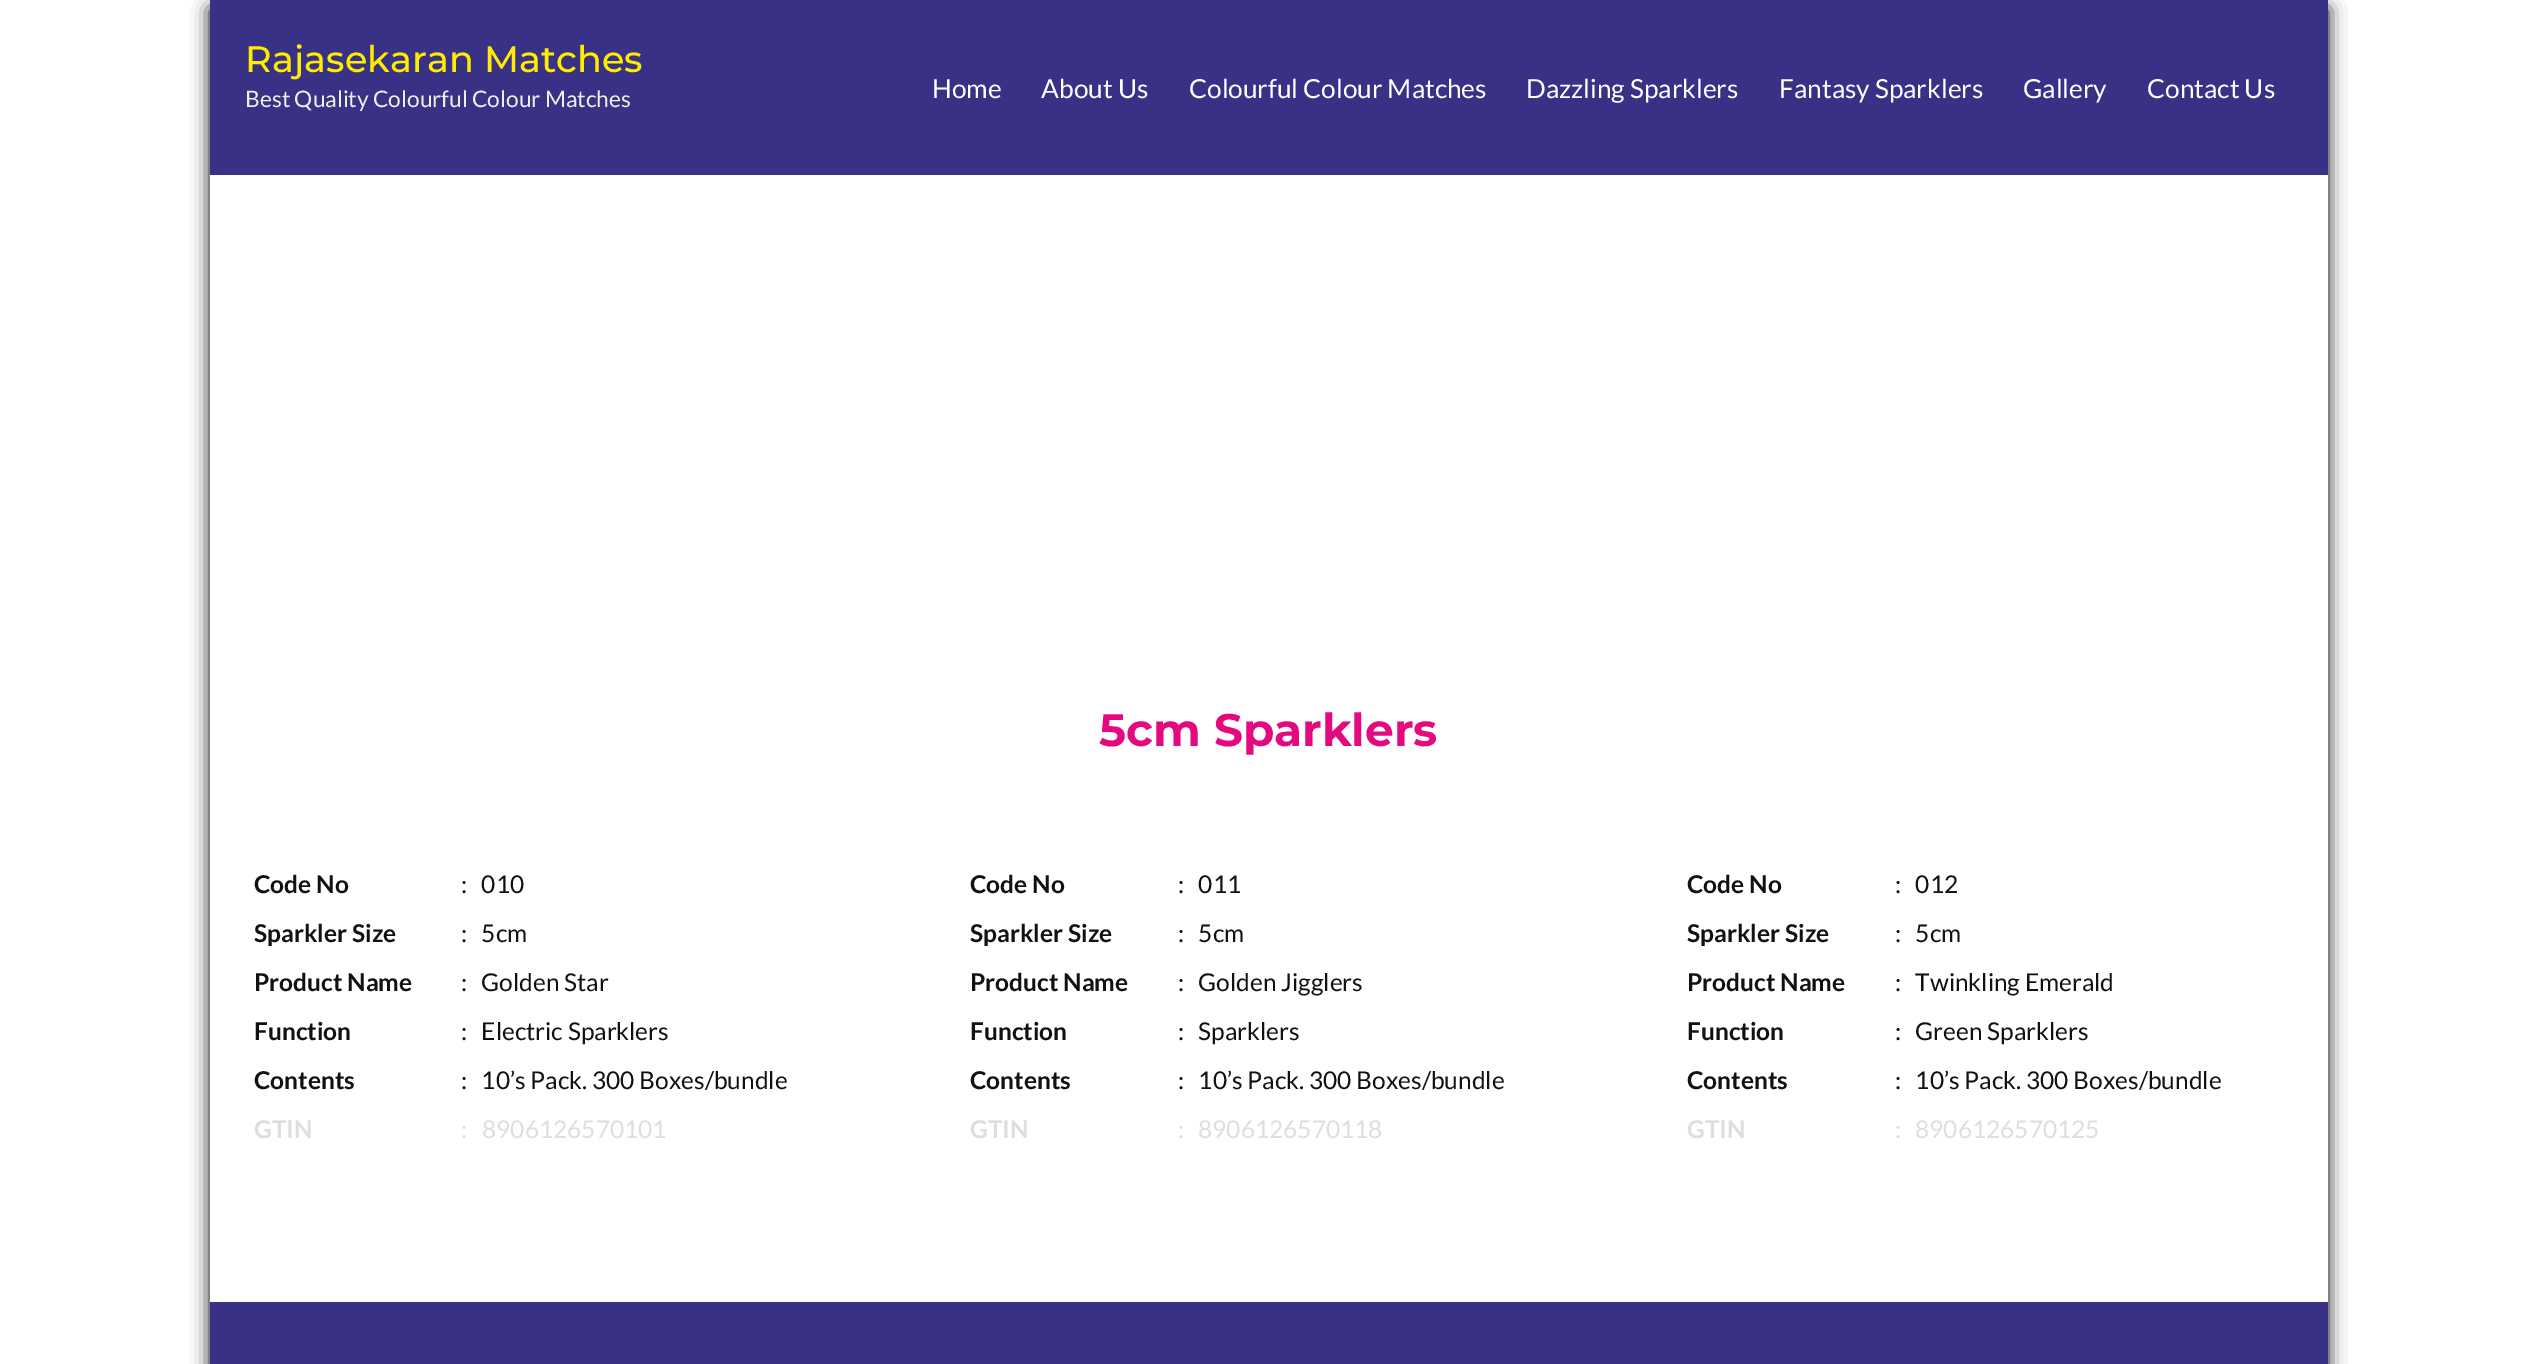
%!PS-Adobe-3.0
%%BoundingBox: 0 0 2537 1364
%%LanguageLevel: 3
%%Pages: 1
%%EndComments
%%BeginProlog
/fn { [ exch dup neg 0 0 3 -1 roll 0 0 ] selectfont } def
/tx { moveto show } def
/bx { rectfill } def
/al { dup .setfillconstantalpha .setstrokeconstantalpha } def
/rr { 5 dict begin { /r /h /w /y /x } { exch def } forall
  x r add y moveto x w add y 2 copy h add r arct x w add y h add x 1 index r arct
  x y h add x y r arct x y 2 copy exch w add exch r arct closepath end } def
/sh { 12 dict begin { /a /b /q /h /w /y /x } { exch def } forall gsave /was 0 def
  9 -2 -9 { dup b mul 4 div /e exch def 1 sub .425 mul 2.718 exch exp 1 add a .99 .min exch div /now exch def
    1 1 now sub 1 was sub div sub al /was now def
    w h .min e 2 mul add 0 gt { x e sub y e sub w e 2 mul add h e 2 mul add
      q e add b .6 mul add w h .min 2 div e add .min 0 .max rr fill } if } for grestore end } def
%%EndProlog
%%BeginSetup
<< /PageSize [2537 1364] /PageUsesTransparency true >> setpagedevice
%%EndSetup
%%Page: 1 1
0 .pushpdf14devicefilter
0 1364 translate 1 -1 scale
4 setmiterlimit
1 setgray
0 0 2537 1364 bx
0 setgray
210 9 2118 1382 0 9 1 sh
0.224 0.192 0.522 setrgbcolor
210 0 2118 175 bx
/Montserrat-Medium 36.75 fn
1 0.929 0 setrgbcolor
(Rajasekaran Matches) 245 72 tx
/Lato-Regular 22.75 fn
0.937 setgray
(Best Quality Colourful Colour Matches) 245 107 tx
/Lato-Regular 26.25 fn
1 setgray
(Home) 932 98 tx
(About Us) 1041 98 tx
(Colourful Colour Matches) 1189 98 tx
(Dazzling Sparklers) 1526 98 tx
(Fantasy Sparklers) 1779 98 tx
(Gallery) 2023 98 tx
(Contact Us) 2147 98 tx
210 175 2118 1127 bx
/Montserrat-Bold 45.5 fn
0.898 0.035 0.498 setrgbcolor
(5cm Sparklers) 1099 746 tx
/Lato-Bold 24.5 fn
0.067 setgray
(Code No) 254 893 tx
/Lato-Regular 24.5 fn
(:   010) 461 893 tx
/Lato-Bold 24.5 fn
(Sparkler Size) 254 942 tx
/Lato-Regular 24.5 fn
(:   5cm) 461 942 tx
/Lato-Bold 24.5 fn
(Product Name) 254 991 tx
/Lato-Regular 24.5 fn
(:   Golden Star) 461 991 tx
/Lato-Bold 24.5 fn
(Function) 254 1040 tx
/Lato-Regular 24.5 fn
(:   Electric Sparklers) 461 1040 tx
/Lato-Bold 24.5 fn
(Contents) 254 1089 tx
/Lato-Regular 24.5 fn
(:   10’s Pack. 300 Boxes/bundle) 461 1089 tx
/Lato-Bold 24.5 fn
0.871 setgray
(GTIN) 254 1138 tx
/Lato-Regular 24.5 fn
(:) 461 1138 tx
(8906126570101) 482 1138 tx
/Lato-Bold 24.5 fn
0.067 setgray
(Code No) 970 893 tx
/Lato-Regular 24.5 fn
(:   011) 1178 893 tx
/Lato-Bold 24.5 fn
(Sparkler Size) 970 942 tx
/Lato-Regular 24.5 fn
(:   5cm) 1178 942 tx
/Lato-Bold 24.5 fn
(Product Name) 970 991 tx
/Lato-Regular 24.5 fn
(:   Golden Jigglers) 1178 991 tx
/Lato-Bold 24.5 fn
(Function) 970 1040 tx
/Lato-Regular 24.5 fn
(:   Sparklers) 1178 1040 tx
/Lato-Bold 24.5 fn
(Contents) 970 1089 tx
/Lato-Regular 24.5 fn
(:   10’s Pack. 300 Boxes/bundle) 1178 1089 tx
/Lato-Bold 24.5 fn
0.871 setgray
(GTIN) 970 1138 tx
/Lato-Regular 24.5 fn
(:) 1178 1138 tx
(8906126570118) 1198 1138 tx
/Lato-Bold 24.5 fn
0.067 setgray
(Code No) 1687 893 tx
/Lato-Regular 24.5 fn
(:   012) 1895 893 tx
/Lato-Bold 24.5 fn
(Sparkler Size) 1687 942 tx
/Lato-Regular 24.5 fn
(:   5cm) 1895 942 tx
/Lato-Bold 24.5 fn
(Product Name) 1687 991 tx
/Lato-Regular 24.5 fn
(:   Twinkling Emerald) 1895 991 tx
/Lato-Bold 24.5 fn
(Function) 1687 1040 tx
/Lato-Regular 24.5 fn
(:   Green Sparklers) 1895 1040 tx
/Lato-Bold 24.5 fn
(Contents) 1687 1089 tx
/Lato-Regular 24.5 fn
(:   10’s Pack. 300 Boxes/bundle) 1895 1089 tx
/Lato-Bold 24.5 fn
0.871 setgray
(GTIN) 1687 1138 tx
/Lato-Regular 24.5 fn
(:) 1895 1138 tx
(8906126570125) 1915 1138 tx
0.224 0.192 0.522 setrgbcolor
210 1302 2118 62 bx
.poppdf14devicefilter showpage
%%EOF
